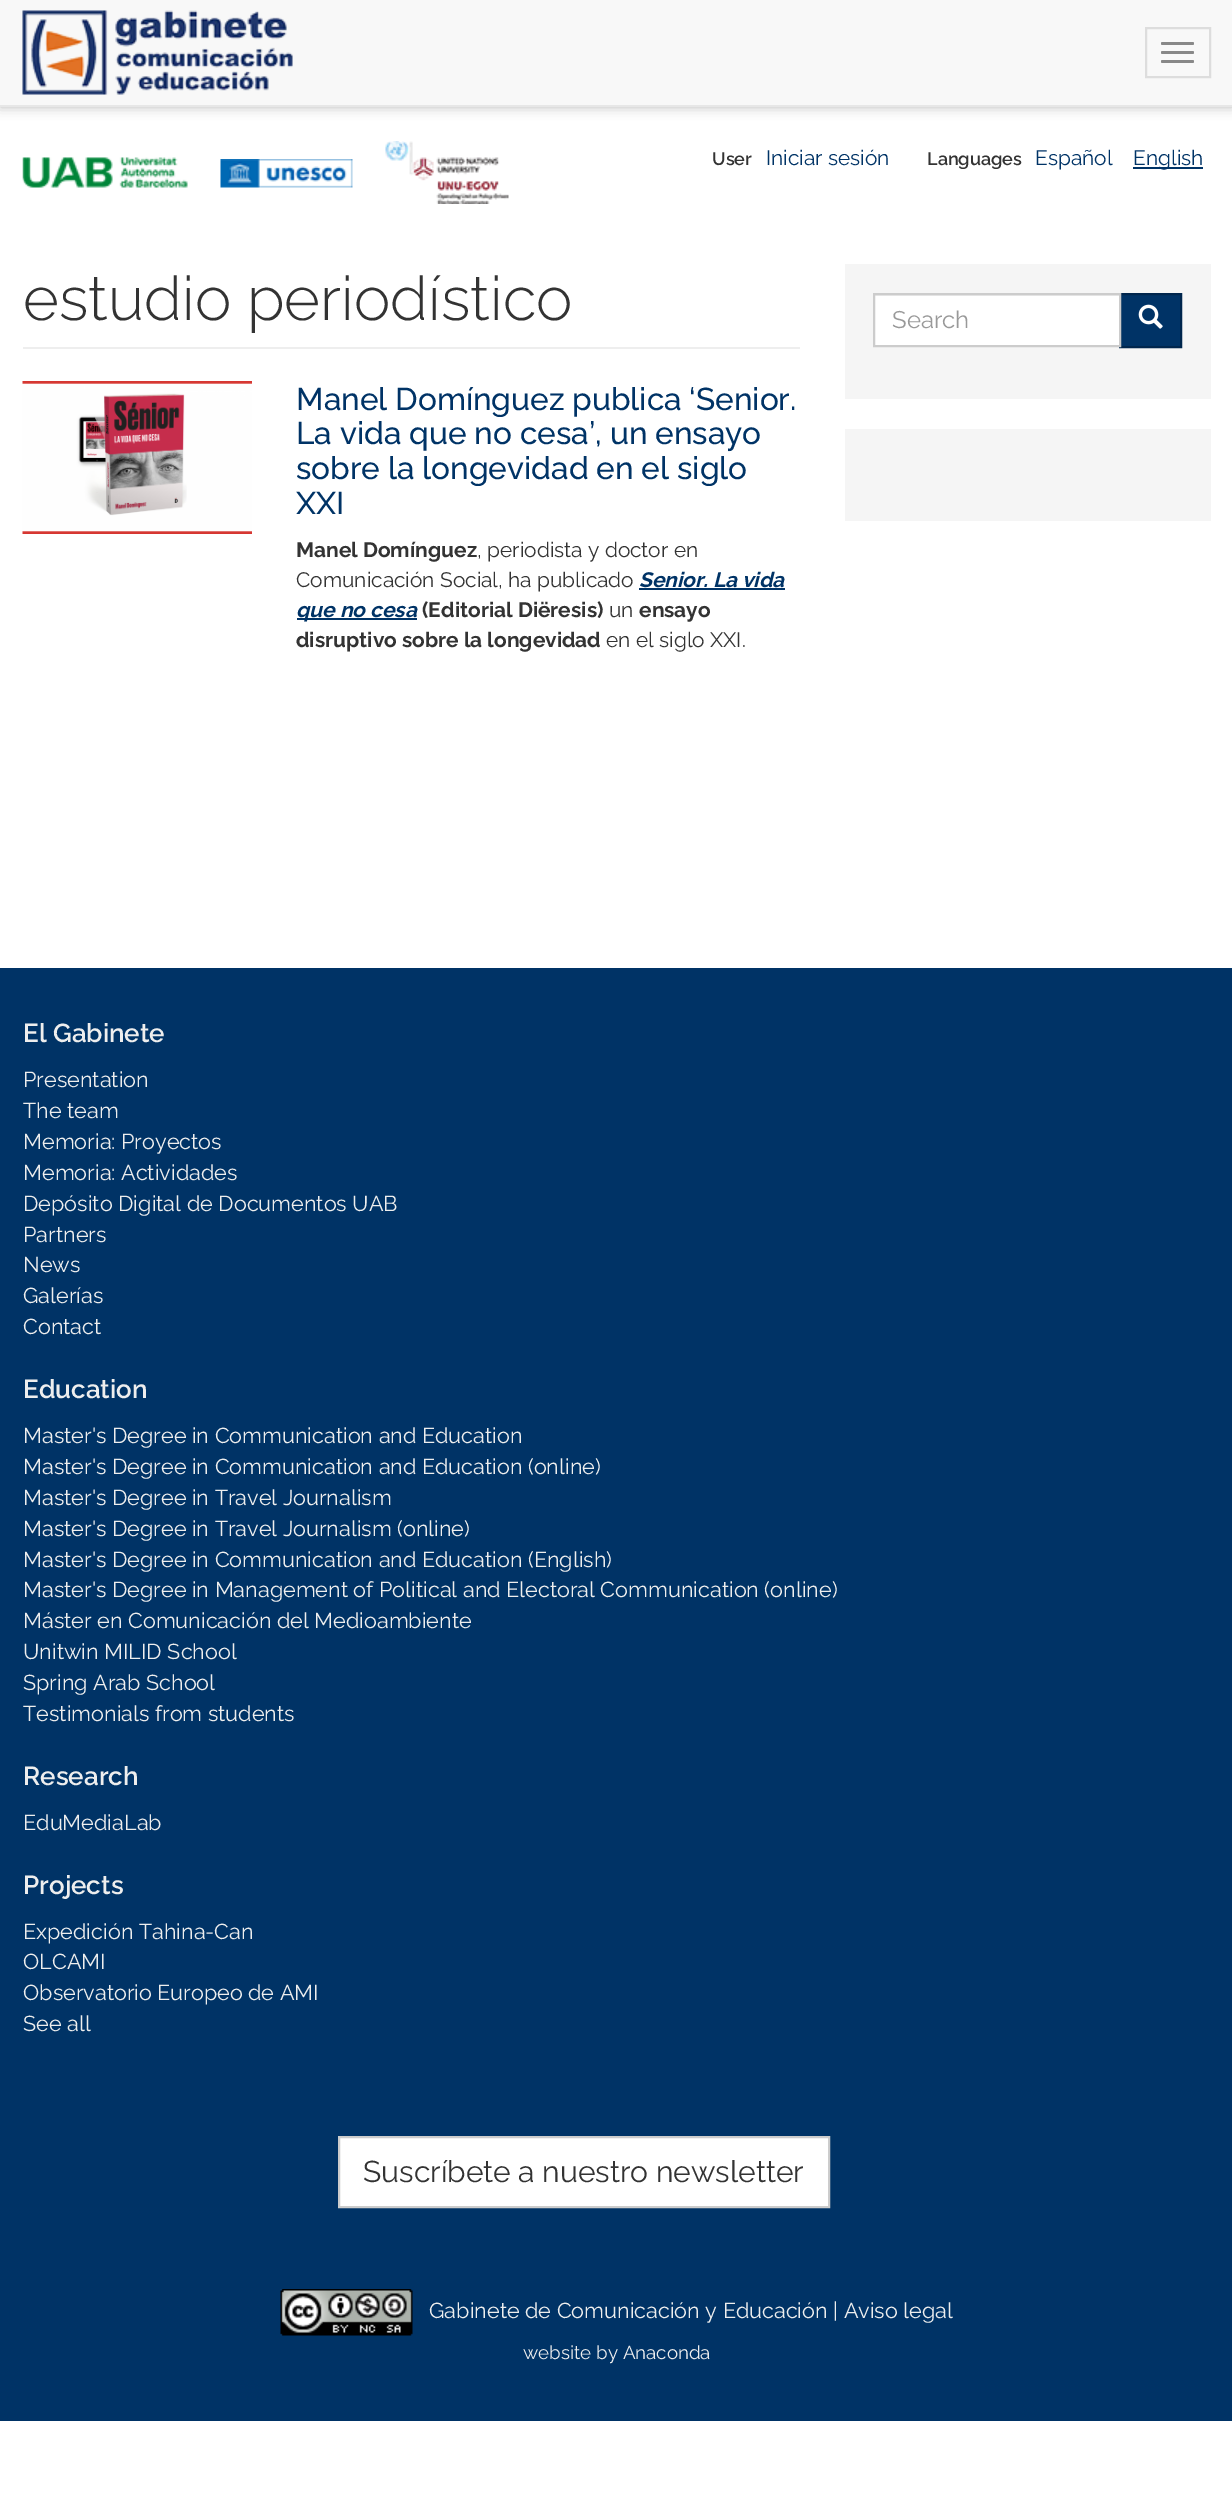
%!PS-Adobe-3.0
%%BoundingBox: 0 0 1232 2501
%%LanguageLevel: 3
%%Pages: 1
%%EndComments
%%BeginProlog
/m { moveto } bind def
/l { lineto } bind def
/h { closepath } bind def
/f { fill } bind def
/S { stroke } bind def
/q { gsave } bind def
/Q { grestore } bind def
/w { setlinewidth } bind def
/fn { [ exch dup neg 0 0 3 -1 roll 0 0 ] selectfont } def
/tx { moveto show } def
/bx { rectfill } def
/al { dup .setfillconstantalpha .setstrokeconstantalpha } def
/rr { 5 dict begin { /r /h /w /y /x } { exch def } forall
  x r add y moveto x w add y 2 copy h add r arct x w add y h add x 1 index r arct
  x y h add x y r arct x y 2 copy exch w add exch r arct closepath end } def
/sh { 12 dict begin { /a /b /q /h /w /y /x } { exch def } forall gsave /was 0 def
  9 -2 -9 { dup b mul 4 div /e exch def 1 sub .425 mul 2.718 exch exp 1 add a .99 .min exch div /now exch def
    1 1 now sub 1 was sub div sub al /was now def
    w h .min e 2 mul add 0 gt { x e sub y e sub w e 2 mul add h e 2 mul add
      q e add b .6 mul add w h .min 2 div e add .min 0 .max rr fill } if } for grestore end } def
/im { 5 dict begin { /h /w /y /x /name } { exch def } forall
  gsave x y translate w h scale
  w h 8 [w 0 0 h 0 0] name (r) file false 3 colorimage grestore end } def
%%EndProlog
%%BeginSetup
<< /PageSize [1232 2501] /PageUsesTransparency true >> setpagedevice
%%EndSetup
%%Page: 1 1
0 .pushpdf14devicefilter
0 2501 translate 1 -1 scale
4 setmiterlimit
1 setgray
0 0 1232 2501 bx
0.733 setgray
0 0 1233 107 0 6 1 sh
0.973 setgray
0 0 1232 105 bx
0.906 setgray
0 105 1232 2 bx
(image0.raw) 22 10 271 85 im
0.867 setgray
2 w
1146 28 64 49 rectstroke
0.533 setgray
1161 42 33 3 1.5 rr f
1161 51 33 3 1.5 rr f
1161 60 33 3 1.5 rr f
(image1.raw) 22 157 166 31 im
(image2.raw) 220 159 133 29 im
(image3.raw) 385 141 124 63 im
/Raleway-SemiBold 18 fn
0.2 setgray
(User) 712 165 tx
/Raleway-Regular 20.9 fn
0 0.2 0.4 setrgbcolor
(Iniciar sesión) 766 165 tx
/Raleway-SemiBold 18 fn
0.2 setgray
(Languages) 927 165 tx
/Raleway-Regular 20.9 fn
0 0.2 0.4 setrgbcolor
(Español) 1035 165 tx
1133 167 70 2 bx
(English) 1133 165 tx
0.933 setgray
23 347 777 2 bx
/Raleway-Light 61.5 fn
0.2 setgray
(estudio periodístico) 23 320 tx
(image4.raw) 22 381 230 153 im
/Raleway-Medium 31.5 fn
0 0.2 0.4 setrgbcolor
(Manel Domínguez publica ‘Senior.) 296 410 tx
(La vida que no cesa’, un ensayo) 296 444 tx
(sobre la longevidad en el siglo) 296 479 tx
(XXI) 296 514 tx
/Raleway-Bold 20.9 fn
0.2 setgray
(Manel Domínguez) 296 557 tx
/Raleway-Regular 20.9 fn
(, periodista y doctor en) 477 557 tx
(Comunicación Social, ha publicado) 296 587 tx
/Raleway-BoldItalic 20.9 fn
0 0.2 0.4 setrgbcolor
(Senior. La vida) 639 587 tx
639 588 146 2 bx
297 618 120 2 bx
(que no cesa) 296 617 tx
/Raleway-Bold 20.9 fn
0.2 setgray
(\(Editorial Diëresis\)) 422 617 tx
/Raleway-Regular 20.9 fn
(un) 609 617 tx
/Raleway-Bold 20.9 fn
(ensayo) 639 617 tx
(disruptivo sobre la longevidad) 296 647 tx
/Raleway-Regular 20.9 fn
(en el siglo XXI.) 606 647 tx
0.961 setgray
845 264 366 135 bx
1 setgray
875 296 244 49 bx
0.925 setgray
875 295 244 1 bx
0 0.2 0.4 setrgbcolor
1120 294 m 1181 294 l 1181 347 l 1120 347 l h q f Q
0 0.149 0.302 setrgbcolor
S
0.8 setgray
874 294 246 52 rectstroke
/Raleway-Regular 24 fn
0.6 setgray
(Search) 892 328 tx
(image5.raw) 1138 304 25 25 im
0.961 setgray
845 429 366 92 bx
0 0.2 0.4 setrgbcolor
0 968 1232 1453 bx
/Raleway-SemiBold 26 fn
0.933 setgray
(El Gabinete) 23 1042 tx
/Raleway-Regular 21.6 fn
(Presentation) 23 1087 tx
(The team) 23 1118 tx
(Memoria: Proyectos) 23 1149 tx
(Memoria: Actividades) 23 1180 tx
(Depósito Digital de Documentos UAB) 23 1211 tx
(Partners) 23 1242 tx
(News) 23 1272 tx
(Galerías) 23 1303 tx
(Contact) 23 1334 tx
/Raleway-SemiBold 26 fn
(Education) 23 1398 tx
/Raleway-Regular 21.6 fn
(Master's Degree in Communication and Education) 23 1443 tx
(Master's Degree in Communication and Education \(online\)) 23 1474 tx
(Master's Degree in Travel Journalism) 23 1505 tx
(Master's Degree in Travel Journalism \(online\)) 23 1536 tx
(Master's Degree in Communication and Education \(English\)) 23 1567 tx
(Master's Degree in Management of Political and Electoral Communication \(online\)) 23 1597 tx
(Máster en Comunicación del Medioambiente) 23 1628 tx
(Unitwin MILID School) 23 1659 tx
(Spring Arab School) 23 1690 tx
(Testimonials from students) 23 1721 tx
/Raleway-SemiBold 26 fn
(Research) 23 1785 tx
/Raleway-Regular 21.6 fn
(EduMediaLab) 23 1830 tx
/Raleway-SemiBold 26 fn
(Projects) 23 1894 tx
/Raleway-Regular 21.6 fn
(Expedición Tahina-Can) 23 1939 tx
(OLCAMI) 23 1969 tx
(Observatorio Europeo de AMI) 23 2000 tx
(See all) 23 2031 tx
1 setgray
339 2137 m 829 2137 l 829 2207 l 339 2207 l h q f Q
0.8 setgray
S
/Raleway-Regular 30 fn
0.2 setgray
(Suscríbete a nuestro newsletter) 363 2182 tx
(image6.raw) 280 2289 133 47 im
/Raleway-Regular 21.6 fn
0.933 setgray
(Gabinete de Comunicación y Educación | Aviso legal) 429 2318 tx
/Raleway-Regular 18.75 fn
(website by Anaconda) 523 2359 tx
.poppdf14devicefilter showpage
%%EOF
